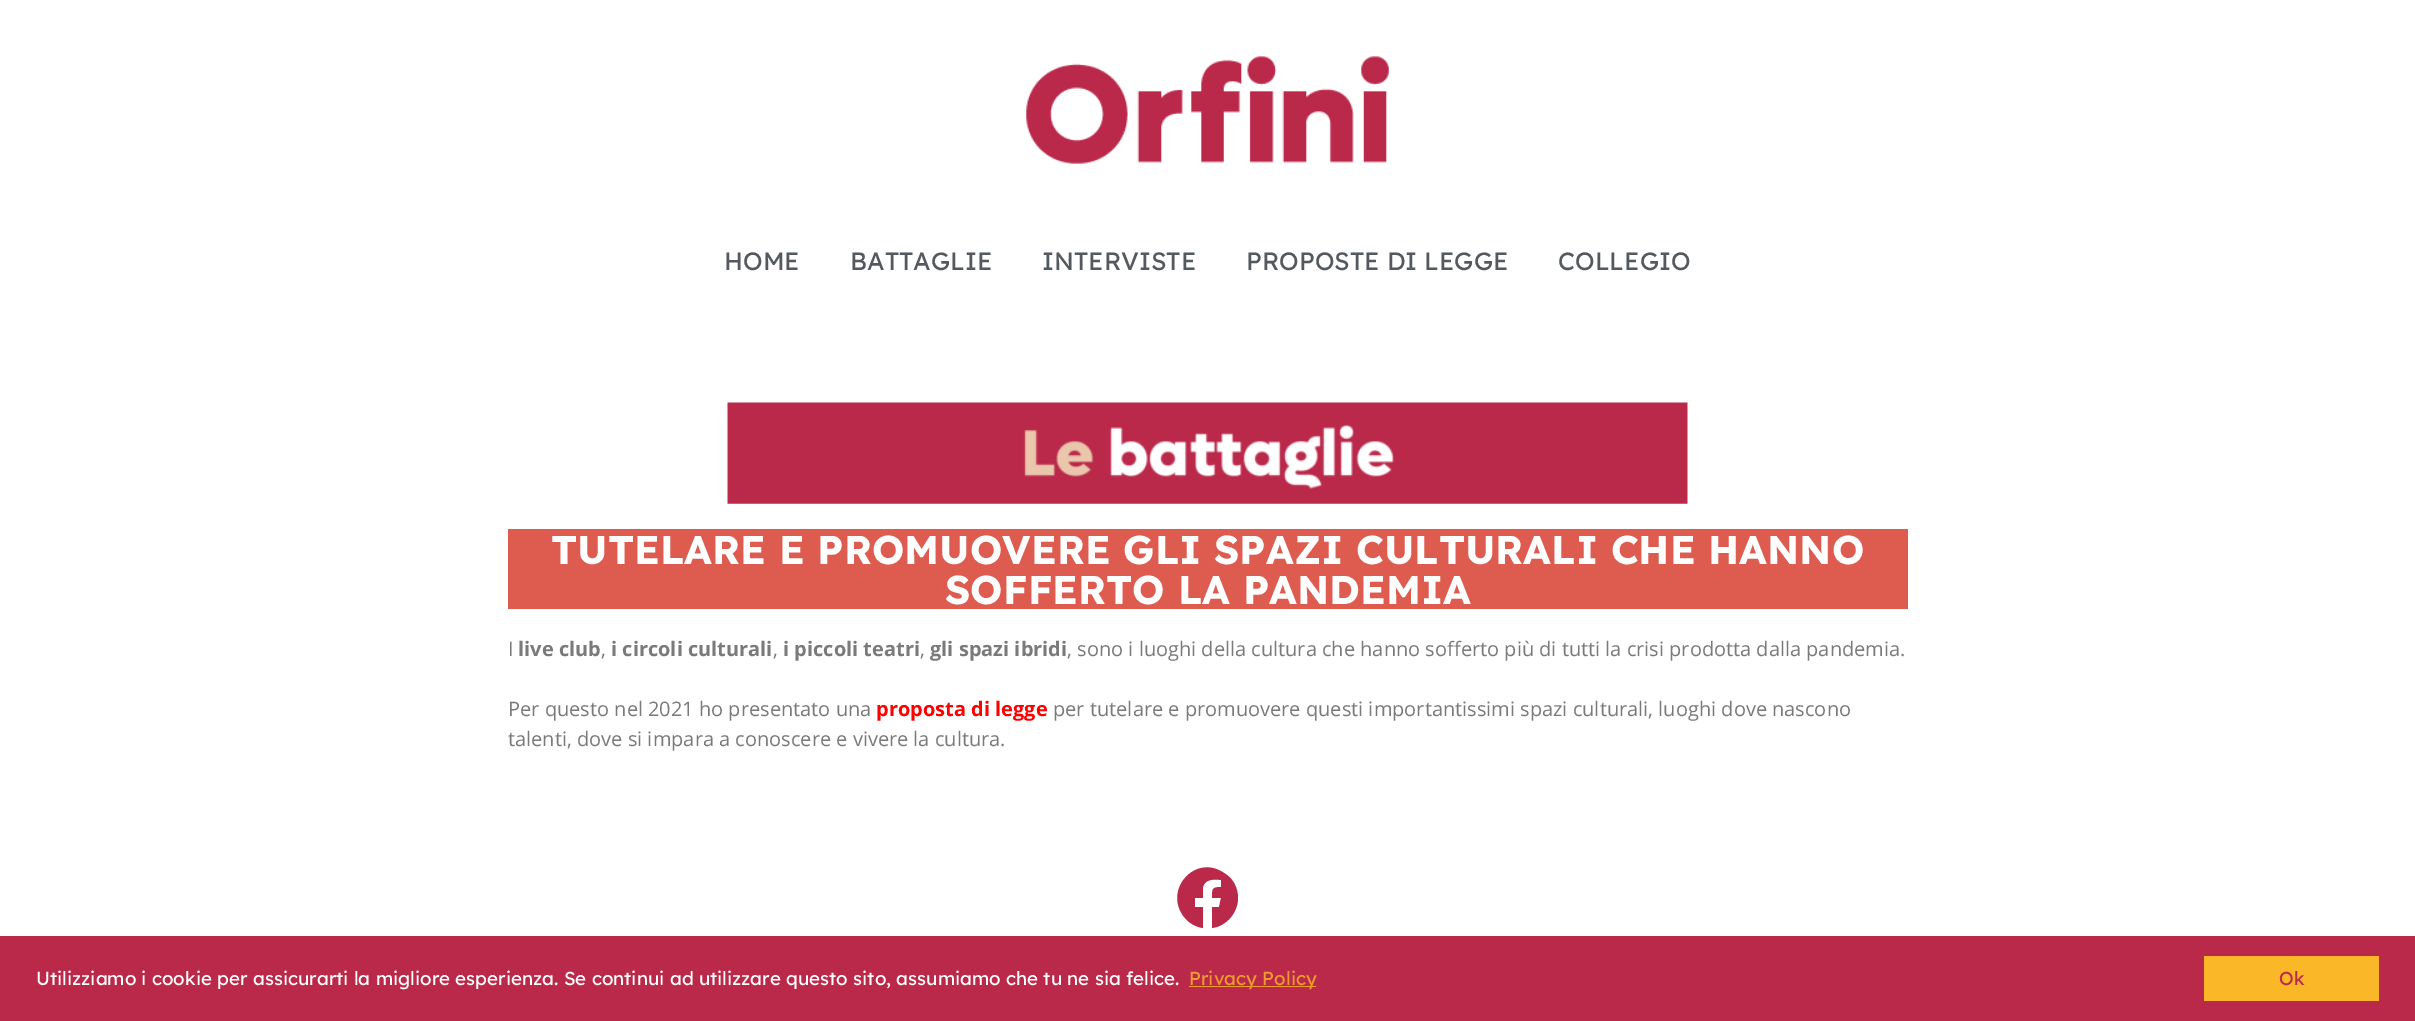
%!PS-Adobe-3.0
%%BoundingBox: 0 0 2415 1021
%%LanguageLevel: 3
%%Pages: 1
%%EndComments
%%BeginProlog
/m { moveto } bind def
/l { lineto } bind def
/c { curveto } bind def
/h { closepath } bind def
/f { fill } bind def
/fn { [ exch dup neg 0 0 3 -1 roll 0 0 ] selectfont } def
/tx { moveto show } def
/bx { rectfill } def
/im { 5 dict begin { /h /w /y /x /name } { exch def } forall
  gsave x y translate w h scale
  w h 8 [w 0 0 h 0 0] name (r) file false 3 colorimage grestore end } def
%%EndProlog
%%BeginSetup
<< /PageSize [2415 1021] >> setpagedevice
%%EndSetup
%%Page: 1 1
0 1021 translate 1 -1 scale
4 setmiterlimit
1 setgray
0 0 2415 1021 bx
(image0.raw) 1026 56 363 108 im
/Lexend-Regular 25 fn
0.329 0.349 0.373 setrgbcolor
(HOME) 724 270 tx
(BATTAGLIE) 850 270 tx
(INTERVISTE) 1042 270 tx
(PROPOSTE DI LEGGE) 1246 270 tx
(COLLEGIO) 1558 270 tx
(image1.raw) 727 402 961 102 im
0.867 0.361 0.31 setrgbcolor
508 529 1400 80 bx
/Lexend-Bold 40 fn
1 setgray
(TUTELARE E PROMUOVERE GLI SPAZI CULTURALI CHE HANNO) 551 564 tx
(SOFFERTO LA PANDEMIA) 945 604 tx
/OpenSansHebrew-Regular 20 fn
0.478 setgray
(I) 508 656 tx
/OpenSansHebrew-Bold 20 fn
(live club) 518 656 tx
/OpenSansHebrew-Regular 20 fn
(,) 601 656 tx
/OpenSansHebrew-Bold 20 fn
(i circoli culturali) 611 656 tx
/OpenSansHebrew-Regular 20 fn
(,) 773 656 tx
/OpenSansHebrew-Bold 20 fn
(i piccoli teatri) 783 656 tx
/OpenSansHebrew-Regular 20 fn
(,) 920 656 tx
/OpenSansHebrew-Bold 20 fn
(gli spazi ibridi) 930 656 tx
/OpenSansHebrew-Regular 20 fn
(, sono i luoghi della cultura che hanno sofferto più di tutti la crisi prodotta dalla pandemia.) 1067 656 tx
(Per questo nel 2021 ho presentato una) 508 716 tx
/OpenSansHebrew-Bold 20 fn
1 0 0 setrgbcolor
(proposta di legge) 876 716 tx
/OpenSansHebrew-Regular 20 fn
0.478 setgray
(per tutelare e promuovere questi importantissimi spazi culturali, luoghi dove nascono) 1053 716 tx
(talenti, dove si impara a conoscere e vivere la cultura.) 508 746 tx
0.733 0.161 0.29 setrgbcolor
1238 898 m 1238 912 1227 926 1212 928 c 1212 907 l 1219 907 l 1221 898 l 1212 898 l 1212 889 1212 887 1221 887 c 1221 880 l 1214 879 1205 879 1203 887 c 1203 898 l 1195 898 l 1195 907 l 1203 907 l 1203 928 l 1196 927 1189 923 1185 918 c 1162 891 1195 853 1224 873 c 1233 878 1238 888 1238 898 c h f
0 936 2415 85 bx
/Lexend-Regular 18.75 fn
1 setgray
(Utilizziamo i cookie per assicurarti la migliore esperienza. Se continui ad utilizzare questo sito, assumiamo che tu ne sia felice.) 36 985 tx
0.929 0.608 0.184 setrgbcolor
1189 986 127 1 bx
(Privacy Policy) 1189 985 tx
0.98 0.718 0.157 setrgbcolor
2204 956 175 45 bx
0.733 0.161 0.29 setrgbcolor
(Ok) 2279 985 tx
showpage
%%EOF
